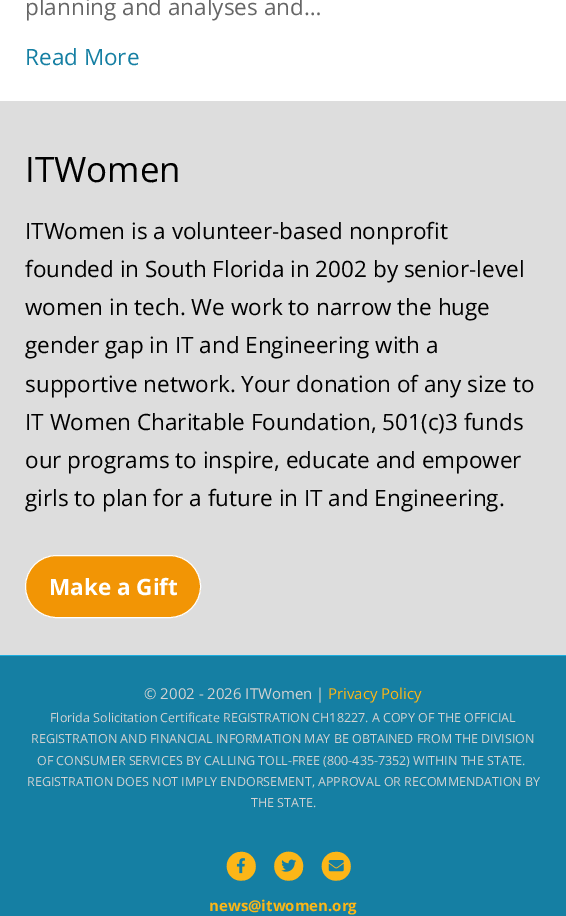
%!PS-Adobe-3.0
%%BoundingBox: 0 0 566 916
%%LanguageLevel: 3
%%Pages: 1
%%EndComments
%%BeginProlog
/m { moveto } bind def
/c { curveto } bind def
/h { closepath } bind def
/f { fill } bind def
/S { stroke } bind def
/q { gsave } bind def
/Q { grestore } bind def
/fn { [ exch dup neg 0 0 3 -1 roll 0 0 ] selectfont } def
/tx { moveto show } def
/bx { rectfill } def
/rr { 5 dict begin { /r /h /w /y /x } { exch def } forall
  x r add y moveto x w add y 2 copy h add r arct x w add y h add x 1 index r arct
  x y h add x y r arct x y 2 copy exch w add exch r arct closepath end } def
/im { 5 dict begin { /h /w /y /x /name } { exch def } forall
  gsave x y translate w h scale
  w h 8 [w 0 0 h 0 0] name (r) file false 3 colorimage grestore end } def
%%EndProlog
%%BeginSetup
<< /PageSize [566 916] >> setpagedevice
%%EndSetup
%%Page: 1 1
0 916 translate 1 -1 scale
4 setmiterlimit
1 setgray
0 0 566 916 bx
/OpenSans-Regular 22.5 fn
0.4 setgray
(planning and analyses and…) 25 15 tx
0.082 0.498 0.639 setrgbcolor
(Read More) 25 65 tx
0.867 setgray
0 101 566 554 bx
/OpenSans-Regular 35 fn
0 setgray
(ITWomen) 25 182 tx
/OpenSans-Regular 22.5 fn
(ITWomen is a volunteer-based nonprofit) 25 239 tx
(founded in South Florida in 2002 by senior-level) 25 277 tx
(women in tech. We work to narrow the huge) 25 315 tx
(gender gap in IT and Engineering with a) 25 353 tx
(supportive network. Your donation of any size to) 25 392 tx
(IT Women Charitable Foundation, 501\(c\)3 funds) 25 430 tx
(our programs to inspire, educate and empower) 25 468 tx
(girls to plan for a future in IT and Engineering.) 25 506 tx
0.949 0.584 0.02 setrgbcolor
25.5 555.5 175 62 31 rr q f Q
1 setgray
S
/OpenSans-Bold 22.5 fn
(Make a Gift) 49 595 tx
0.082 0.498 0.639 setrgbcolor
0 656 566 260 bx
0.114 0.678 0.871 setrgbcolor
0 655 566 1 bx
/OpenSans-Regular 15 fn
0.827 setgray
(© 2002 - 2026 ITWomen |) 144 699 tx
0.988 0.714 0.09 setrgbcolor
(Privacy Policy) 328 699 tx
/OpenSans-Regular 12.5 fn
0.827 setgray
(Florida Solicitation Certificate REGISTRATION CH18227. A COPY OF THE OFFICIAL) 50 722 tx
(REGISTRATION AND FINANCIAL INFORMATION MAY BE OBTAINED FROM THE DIVISION) 31 743 tx
(OF CONSUMER SERVICES BY CALLING TOLL-FREE \(800-435-7352\) WITHIN THE STATE.) 37 765 tx
(REGISTRATION DOES NOT IMPLY ENDORSEMENT, APPROVAL OR RECOMMENDATION BY) 27 786 tx
(THE STATE.) 251 807 tx
0.988 0.714 0.09 setrgbcolor
231 856 m 233.5 853.5 236.5 852 240 852 c 253.5 850.5 261 867 251.5 876.5 c 249 879 246 880.5 242.5 880.5 c 229 882 221.5 865.5 231 856 c h f
(image0.raw) 236 858 9 16 im
278.5 856 m 288 846.5 304.5 854 303 867.5 c 303 871 301.5 874 299 876.5 c 296.5 879 293.5 880.5 290 880.5 c 276.5 882 269 865.5 278.5 856 c h f
(image1.raw) 281 859 16 13 im
326 856 m 328.5 853.5 331.5 852 335 852 c 348.5 850.5 356 867 346.5 876.5 c 344 879 341 880.5 337.5 880.5 c 324 882 316.5 865.5 326 856 c h f
(image2.raw) 328 860 16 12 im
/OpenSans-Bold 15 fn
(news@itwomen.org) 209 911 tx
showpage
%%EOF
